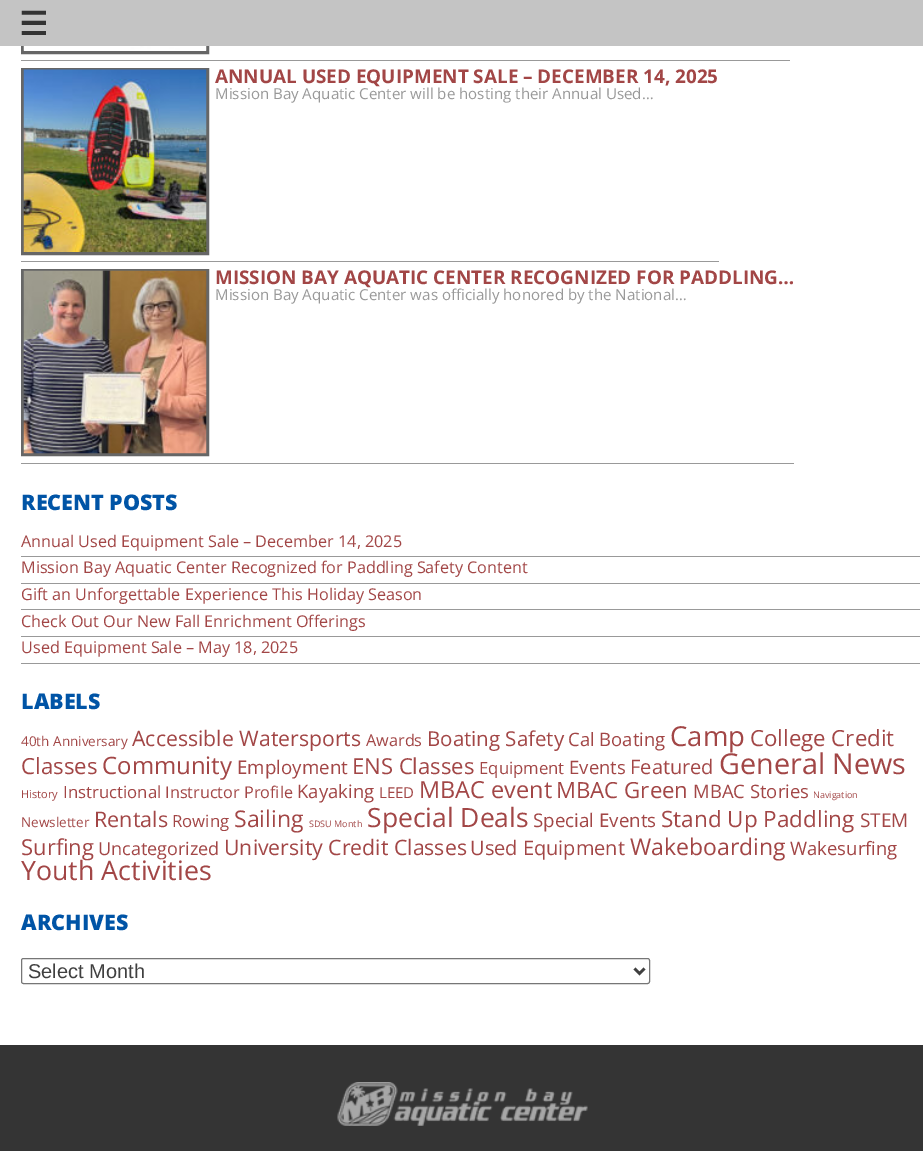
%!PS-Adobe-3.0
%%BoundingBox: 0 0 923 1151
%%LanguageLevel: 3
%%Pages: 1
%%EndComments
%%BeginProlog
/m { moveto } bind def
/l { lineto } bind def
/S { stroke } bind def
/w { setlinewidth } bind def
/fn { [ exch dup neg 0 0 3 -1 roll 0 0 ] selectfont } def
/tx { moveto show } def
/bx { rectfill } def
/rr { 5 dict begin { /r /h /w /y /x } { exch def } forall
  x r add y moveto x w add y 2 copy h add r arct x w add y h add x 1 index r arct
  x y h add x y r arct x y 2 copy exch w add exch r arct closepath end } def
/im { 5 dict begin { /h /w /y /x /name } { exch def } forall
  gsave x y translate w h scale
  w h 8 [w 0 0 h 0 0] name (r) file false 3 colorimage grestore end } def
%%EndProlog
%%BeginSetup
<< /PageSize [923 1151] >> setpagedevice
%%EndSetup
%%Page: 1 1
0 1151 translate 1 -1 scale
4 setmiterlimit
1 setgray
0 0 923 1151 bx
0.4 setgray
3 w
22.5 -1.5 185 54 rectstroke
0.769 setgray
0 0 923 46 bx
/DejaVuSans-Bold 32 fn
0.2 setgray
(☰) 19 35 tx
0.6 setgray
21 60 769 1 bx
(image0.raw) 23 46 184 5 im
21 261 698 1 bx
0.4 setgray
22.5 69.5 185 184 rectstroke
(image1.raw) 23 69 184 183 im
/OpenSans-Bold 18.9 fn
0.635 0.275 0.275 setrgbcolor
(ANNUAL USED EQUIPMENT SALE – DECEMBER 14, 2025) 215 83 tx
/OpenSans-Regular 15.1 fn
0.6 setgray
(Mission Bay Aquatic Center will be hosting their Annual Used…) 215 99 tx
21 463 773 1 bx
0.4 setgray
22.5 270.5 185 184 rectstroke
(image2.raw) 23 270 184 184 im
/OpenSans-Bold 18.9 fn
0.635 0.275 0.275 setrgbcolor
(MISSION BAY AQUATIC CENTER RECOGNIZED FOR PADDLING…) 215 284 tx
/OpenSans-Regular 15.1 fn
0.6 setgray
(Mission Bay Aquatic Center was officially honored by the National…) 215 300 tx
/OpenSans-ExtraBold 21.5 fn
0 0.329 0.651 setrgbcolor
(RECENT POSTS) 21 510 tx
0.6 setgray
21 556 899 1 bx
/OpenSans-Regular 16.2 fn
0.635 0.275 0.275 setrgbcolor
(Annual Used Equipment Sale – December 14, 2025) 21 547 tx
0.6 setgray
21 583 899 1 bx
0.635 0.275 0.275 setrgbcolor
(Mission Bay Aquatic Center Recognized for Paddling Safety Content) 21 573 tx
0.6 setgray
21 609 899 1 bx
0.635 0.275 0.275 setrgbcolor
(Gift an Unforgettable Experience This Holiday Season) 21 600 tx
0.6 setgray
21 636 899 1 bx
0.635 0.275 0.275 setrgbcolor
(Check Out Our New Fall Enrichment Offerings) 21 627 tx
0.6 setgray
21 663 899 1 bx
0.635 0.275 0.275 setrgbcolor
(Used Equipment Sale – May 18, 2025) 21 653 tx
/OpenSans-ExtraBold 21.5 fn
0 0.329 0.651 setrgbcolor
(LABELS) 21 709 tx
/OpenSans-Regular 13.5 fn
0.635 0.275 0.275 setrgbcolor
(40th Anniversary) 21 746 tx
/OpenSans-Regular 21.25 fn
(Accessible Watersports) 132 746 tx
/OpenSans-Regular 16.25 fn
(Awards) 366 746 tx
/OpenSans-Regular 20.5 fn
(Boating Safety) 427 746 tx
/OpenSans-Regular 18.5 fn
(Cal Boating) 568 746 tx
/OpenSans-Regular 27.5 fn
(Camp) 670 746 tx
/OpenSans-Regular 22.25 fn
(College Credit) 750 746 tx
(Classes) 21 774 tx
/OpenSans-Regular 24 fn
(Community) 102 774 tx
/OpenSans-Regular 18.75 fn
(Employment) 237 774 tx
/OpenSans-Regular 22 fn
(ENS Classes) 352 774 tx
/OpenSans-Regular 16.75 fn
(Equipment) 479 774 tx
/OpenSans-Regular 18.5 fn
(Events) 569 774 tx
/OpenSans-Regular 20 fn
(Featured) 630 774 tx
/OpenSans-Regular 28.75 fn
(General News) 719 774 tx
/OpenSans-Regular 11 fn
(History) 21 798 tx
/OpenSans-Regular 16.75 fn
(Instructional) 63 798 tx
/OpenSans-Regular 16.25 fn
(Instructor Profile) 165 798 tx
/OpenSans-Regular 18.5 fn
(Kayaking) 297 798 tx
/OpenSans-Regular 15 fn
(LEED) 379 798 tx
/OpenSans-Regular 23.5 fn
(MBAC event) 419 798 tx
/OpenSans-Regular 22.25 fn
(MBAC Green) 556 798 tx
/OpenSans-Regular 18.5 fn
(MBAC Stories) 693 798 tx
/OpenSans-Regular 9 fn
(Navigation) 813 798 tx
/OpenSans-Regular 13.5 fn
(Newsletter) 21 827 tx
/OpenSans-Regular 21.5 fn
(Rentals) 94 827 tx
/OpenSans-Regular 16.75 fn
(Rowing) 172 827 tx
/OpenSans-Regular 23 fn
(Sailing) 234 827 tx
/OpenSans-Regular 9 fn
(SDSU Month) 309 827 tx
/OpenSans-Regular 26.5 fn
(Special Deals) 367 827 tx
/OpenSans-Regular 18.75 fn
(Special Events) 533 827 tx
/OpenSans-Regular 22.5 fn
(Stand Up Paddling) 661 827 tx
/OpenSans-Regular 19 fn
(STEM) 860 827 tx
/OpenSans-Regular 22 fn
(Surfing) 21 855 tx
/OpenSans-Regular 18 fn
(Uncategorized) 98 855 tx
/OpenSans-Regular 21.25 fn
(University Credit Classes) 224 855 tx
/OpenSans-Regular 20 fn
(Used Equipment) 470 855 tx
/OpenSans-Regular 23 fn
(Wakeboarding) 630 855 tx
/OpenSans-Regular 18.5 fn
(Wakesurfing) 790 855 tx
/OpenSans-Regular 26.75 fn
(Youth Activities) 21 880 tx
/OpenSans-ExtraBold 21.5 fn
0 0.329 0.651 setrgbcolor
(ARCHIVES) 21 930 tx
0.463 setgray
1 w
21.5 958.5 628 25 2 rr S
0.251 setgray
2.5 w
634.5 968.5 m 639.5 973.5 l 644.5 968.5 l S
/LiberationSans-Regular 20 fn
(Select Month) 28 978 tx
0.204 setgray
0 1045 923 106 bx
(image3.raw) 337 1082 251 44 im
showpage
%%EOF
